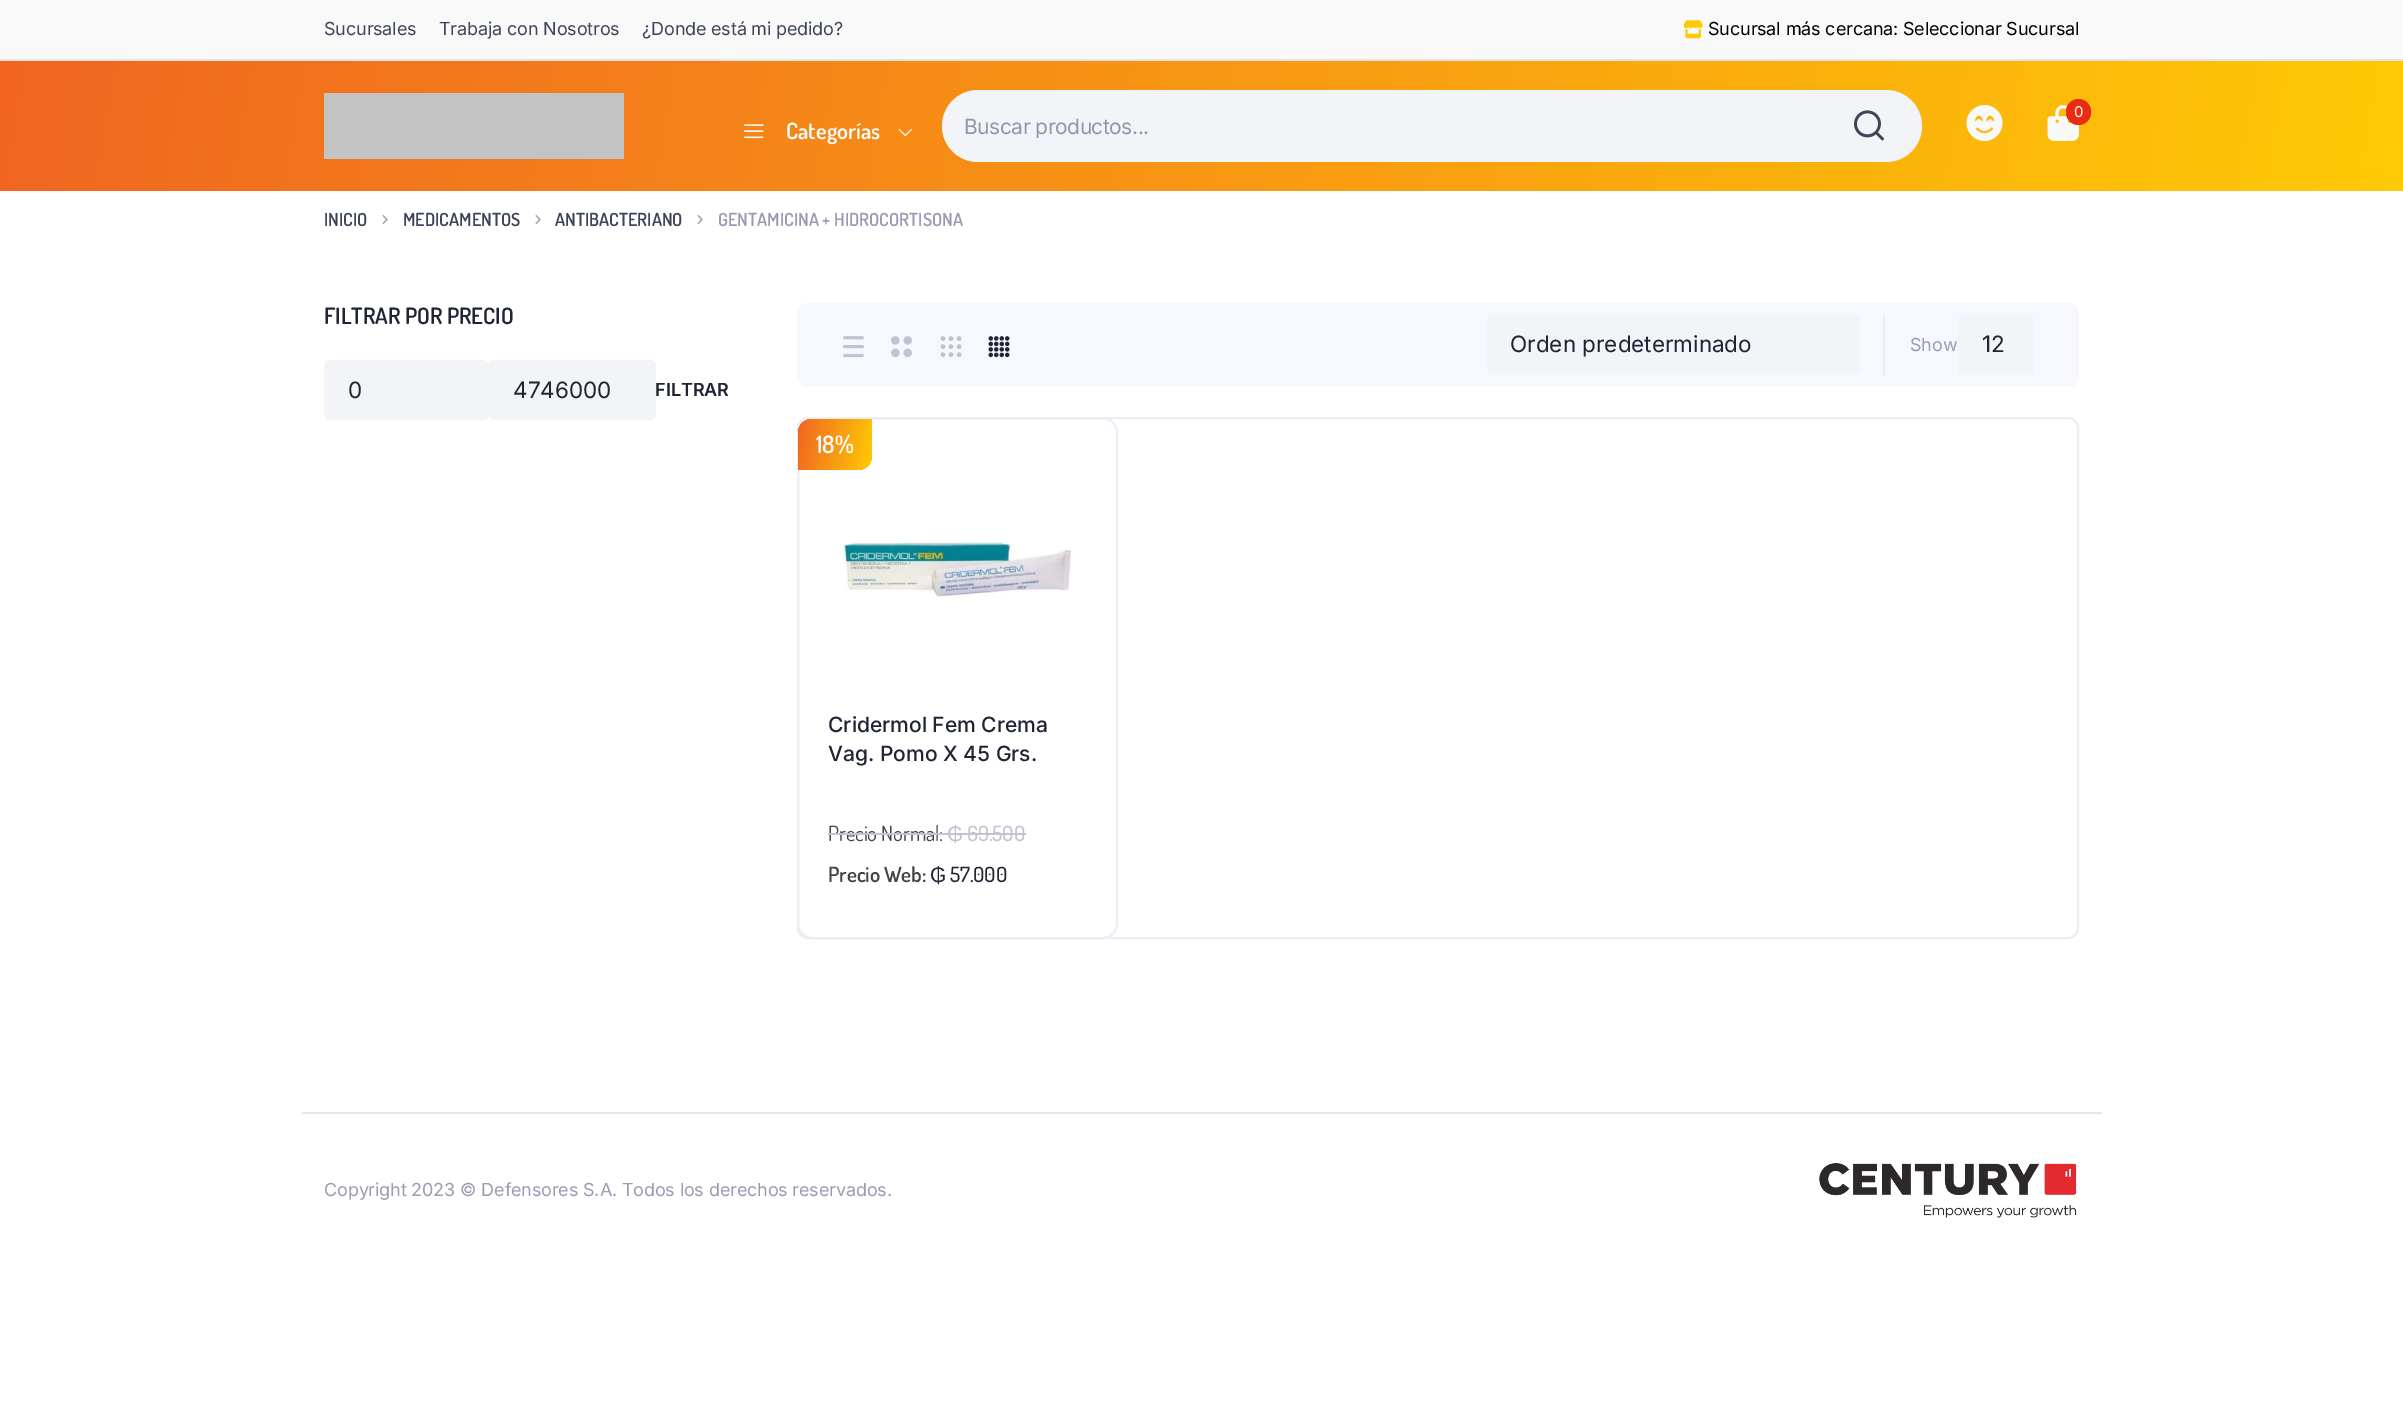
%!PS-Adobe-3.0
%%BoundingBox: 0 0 2403 1410
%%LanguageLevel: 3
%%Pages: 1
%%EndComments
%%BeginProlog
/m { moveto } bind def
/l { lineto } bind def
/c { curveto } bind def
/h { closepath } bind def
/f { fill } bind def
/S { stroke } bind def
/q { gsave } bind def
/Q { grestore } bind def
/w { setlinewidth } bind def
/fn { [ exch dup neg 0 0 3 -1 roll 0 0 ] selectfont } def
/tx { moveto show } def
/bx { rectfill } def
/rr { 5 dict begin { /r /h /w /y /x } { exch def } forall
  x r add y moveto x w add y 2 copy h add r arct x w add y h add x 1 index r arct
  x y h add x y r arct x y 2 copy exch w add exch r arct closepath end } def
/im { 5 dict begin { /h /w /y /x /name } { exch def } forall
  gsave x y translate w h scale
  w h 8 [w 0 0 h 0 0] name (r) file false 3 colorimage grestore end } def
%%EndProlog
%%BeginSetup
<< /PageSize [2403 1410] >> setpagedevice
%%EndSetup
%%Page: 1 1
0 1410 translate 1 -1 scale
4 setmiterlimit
1 setgray
0 0 2403 1410 bx
0.976 setgray
0 0 2403 59 bx
0.89 0.894 0.902 setrgbcolor
0 59 2403 2 bx
/Inter-Regular 18 fn
0.243 0.267 0.353 setrgbcolor
324 35 m -0.15 0 (Sucursales) ashow
439 35 m -0.15 0 (Trabaja con Nosotros) ashow
642 35 m -0.15 0 (¿Donde está mi pedido?) ashow
(image0.raw) 1683 20 20 19 im
0 setgray
1708 35 m -0.15 0 (Sucursal más cercana: Seleccionar Sucursal) ashow
q 0 61 m 2403 61 l 2403 191 l 0 191 l h clip newpath
<< /ShadingType 2 /ColorSpace /DeviceRGB /Coords [25 -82 2378 333] /Extend [true true] /Function << /FunctionType 2 /Domain [0 1] /C0 [0.945 0.396 0.133] /C1 [1 0.792 0.02] /N 1 >> >> shfill Q
0.765 setgray
324 93 300 66 bx
(image1.raw) 1966 105 37 36 im
(image2.raw) 2047 105 32 36 im
0.918 0.169 0.059 setrgbcolor
2066 99 25 26 12.5 rr f
/Inter-Regular 15 fn
1 setgray
2074 117 m -0.15 0 (0) ashow
(image3.raw) 744 124 20 15 im
/Dosis-SemiBold 22.5 fn
(Categorías) 786 139 tx
(image4.raw) 898 128 15 9 im
0.953 0.957 0.969 setrgbcolor
942 90 980 72 36 rr f
q
965 113 928 25 rectclip
/Inter-Regular 21 fn
0.584 0.584 0.663 setrgbcolor
964 134 m -0.5 0 (Buscar productos...) ashow
Q
(image5.raw) 1854 110 30 31 im
/Dosis-SemiBold 18 fn
0.243 0.267 0.353 setrgbcolor
(INICIO) 324 226 tx
(image6.raw) 382 215 6 9 im
(MEDICAMENTOS) 403 226 tx
(image6.raw) 535 215 6 9 im
(ANTIBACTERIANO) 555 226 tx
(image6.raw) 697 215 6 9 im
0.608 0.608 0.706 setrgbcolor
(GENTAMICINA + HIDROCORTISONA) 718 226 tx
/Dosis-SemiBold 22.5 fn
0.125 0.141 0.208 setrgbcolor
(FILTRAR POR PRECIO) 324 324 tx
0.953 0.957 0.969 setrgbcolor
324 360 165 60 6 rr f
/Inter-Regular 22.5 fn
0.125 0.141 0.208 setrgbcolor
(0) 348 398 tx
0.953 0.957 0.969 setrgbcolor
489 360 167 60 6 rr f
0.125 0.141 0.208 setrgbcolor
(4746000) 513 398 tx
/Inter-SemiBold 18 fn
(FILTRAR) 655 396 tx
0.969 0.973 0.992 setrgbcolor
797 303 1282 84 11 rr f
(image7.raw) 843 336 21 22 im
(image8.raw) 891 336 21 22 im
(image9.raw) 940 336 22 22 im
(image10.raw) 988 336 22 22 im
0.953 0.957 0.969 setrgbcolor
1487 315 373 60 6 rr f
/Inter-Regular 22.5 fn
0.125 0.141 0.208 setrgbcolor
(Orden predeterminado) 1510 352 tx
0.929 0.933 0.961 setrgbcolor
1883 315 2 60 bx
/Inter-Regular 18 fn
0.608 0.608 0.706 setrgbcolor
1910 351 m -0.15 0 (Show) ashow
0.953 0.957 0.969 setrgbcolor
1958 315 76 60 6 rr f
/Inter-Regular 22.5 fn
0.125 0.141 0.208 setrgbcolor
(12) 1982 352 tx
0.929 0.933 0.961 setrgbcolor
2 w
798 418 1280 520 10 rr S
798 418 319 520 14 rr S
q 813 419 m 872 419 l 872 455 l 872 463.5 865.5 470 857 470 c 798 470 l 798 434 l 798 425.5 804.5 419 813 419 c h clip newpath
<< /ShadingType 2 /ColorSpace /DeviceRGB /Coords [795 437 875 451] /Extend [true true] /Function << /FunctionType 2 /Domain [0 1] /C0 [0.945 0.396 0.133] /C1 [1 0.792 0.02] /N 1 >> >> shfill Q
/Dosis-SemiBold 24 fn
1 setgray
(18%) 816 453 tx
(image11.raw) 840 540 231 60 im
/Inter-Medium 21 fn
0.125 0.141 0.208 setrgbcolor
(Cridermol Fem Crema) 828 732 tx
(Vag. Pomo X 45 Grs.) 828 761 tx
/Dosis-Regular 21 fn
0.267 setgray
828 841 m -0.15 0 (Precio Normal:) ashow
0.761 0.761 0.827 setrgbcolor
828 833 119 2 bx
/LiberationSans-Regular 21 fn
947 841 m -0.15 0 (₲) ashow
947 833 16 2 bx
963 833 63 2 bx
/Dosis-Medium 21 fn
967 841 m -0.15 0 (69.500) ashow
/Dosis-SemiBold 21 fn
0.267 setgray
828 882 m -0.15 0 (Precio Web:) ashow
/LiberationSans-Regular 21 fn
0.125 0.141 0.208 setrgbcolor
930 882 m -0.15 0 (₲) ashow
/Dosis-Medium 21 fn
950 882 m -0.15 0 (57.000) ashow
0.894 0.898 0.933 setrgbcolor
302 1112 1800 2 bx
/Inter-Regular 18 fn
0.608 0.608 0.706 setrgbcolor
324 1196 m -0.15 0 (Copyright 2023 © Defensores S.A. Todos los derechos reservados.) ashow
(image12.raw) 1819 1163 258 55 im
showpage
%%EOF
